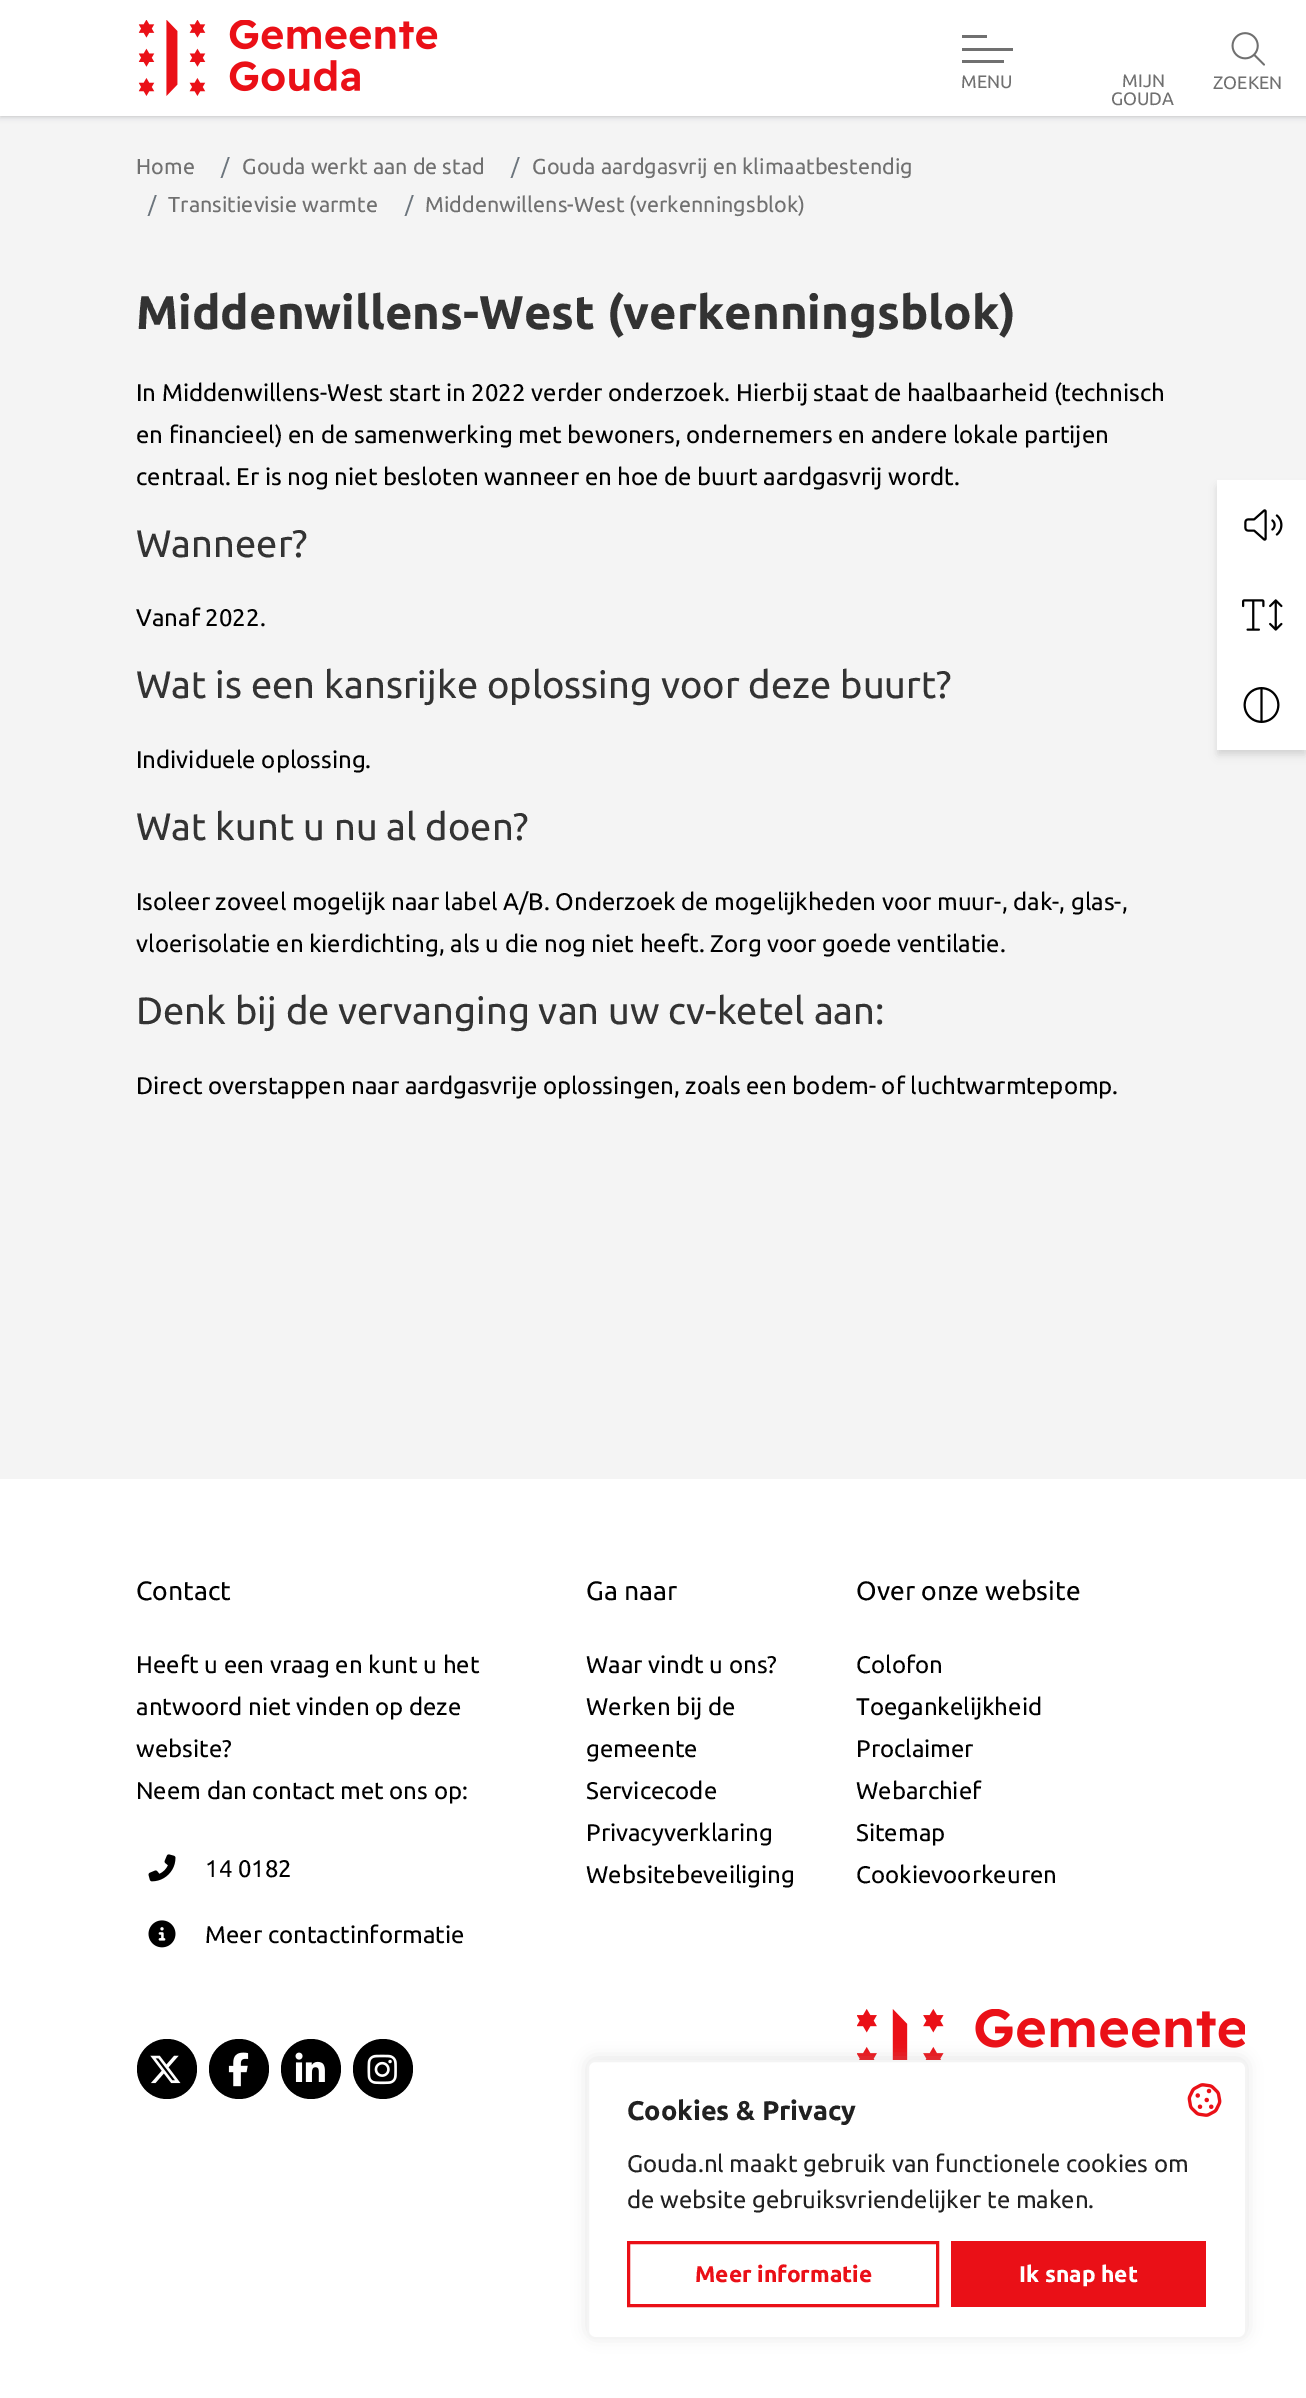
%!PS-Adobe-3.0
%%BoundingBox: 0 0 1306 2398
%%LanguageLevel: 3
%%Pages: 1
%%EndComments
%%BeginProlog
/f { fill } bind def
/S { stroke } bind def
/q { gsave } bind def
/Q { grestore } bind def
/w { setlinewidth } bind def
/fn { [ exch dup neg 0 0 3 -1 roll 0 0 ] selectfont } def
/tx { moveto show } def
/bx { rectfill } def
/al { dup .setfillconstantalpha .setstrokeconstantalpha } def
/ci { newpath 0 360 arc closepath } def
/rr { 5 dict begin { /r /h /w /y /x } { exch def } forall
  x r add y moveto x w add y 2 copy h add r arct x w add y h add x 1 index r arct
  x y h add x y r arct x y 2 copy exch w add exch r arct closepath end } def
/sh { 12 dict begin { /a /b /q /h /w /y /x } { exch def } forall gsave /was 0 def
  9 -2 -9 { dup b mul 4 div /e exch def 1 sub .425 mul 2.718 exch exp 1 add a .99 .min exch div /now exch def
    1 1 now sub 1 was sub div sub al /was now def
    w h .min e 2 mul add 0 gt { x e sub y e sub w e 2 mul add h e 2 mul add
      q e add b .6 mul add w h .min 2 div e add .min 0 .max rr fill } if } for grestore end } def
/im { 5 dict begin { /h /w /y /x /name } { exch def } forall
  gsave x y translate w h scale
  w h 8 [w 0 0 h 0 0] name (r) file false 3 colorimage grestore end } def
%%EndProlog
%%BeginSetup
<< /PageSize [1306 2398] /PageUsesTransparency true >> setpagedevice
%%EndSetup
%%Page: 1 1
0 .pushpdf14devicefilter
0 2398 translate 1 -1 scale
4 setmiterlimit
0.957 setgray
0 0 1306 2398 bx
0.157 0.173 0.208 setrgbcolor
0 2 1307 115 0 1 0.1 sh
0 3 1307 116 0 2 0.08 sh
1 setgray
0 0 1306 116 bx
(image0.raw) 138 20 300 76 im
0.439 setgray
962 35 25 3 bx
962 48 51 3 bx
962 60 42 3 bx
/Ubuntu-Regular 18 fn
(MENU) 961 88 tx
(MIJN) 1122 87 tx
(GOUDA) 1111 105 tx
(image1.raw) 1231 32 34 34 im
(ZOEKEN) 1213 89 tx
/Ubuntu-Regular 21.6 fn
(Home) 136 174 tx
0.424 0.459 0.49 setrgbcolor
(/) 221 174 tx
0.439 setgray
(Gouda werkt aan de stad) 242 174 tx
0.424 0.459 0.49 setrgbcolor
(/) 511 174 tx
0.439 setgray
(Gouda aardgasvrij en klimaatbestendig) 532 174 tx
0.424 0.459 0.49 setrgbcolor
(/) 148 212 tx
0.439 setgray
(Transitievisie warmte) 168 212 tx
0.424 0.459 0.49 setrgbcolor
(/) 405 212 tx
0.439 setgray
(Middenwillens-West \(verkenningsblok\)) 425 212 tx
/Ubuntu-Bold 47.2 fn
0.2 setgray
(Middenwillens-West \(verkenningsblok\)) 136 329 tx
/Ubuntu-Regular 24 fn
0 setgray
(In Middenwillens-West start in 2022 verder onderzoek. Hierbij staat de haalbaarheid \(technisch) 136 401 tx
(en financieel\) en de samenwerking met bewoners, ondernemers en andere lokale partijen) 136 443 tx
(centraal. Er is nog niet besloten wanneer en hoe de buurt aardgasvrij wordt.) 136 485 tx
/Ubuntu-Regular 38.1 fn
0.2 setgray
(Wanneer?) 136 557 tx
/Ubuntu-Regular 24 fn
0 setgray
(Vanaf 2022.) 136 626 tx
/Ubuntu-Regular 38.1 fn
0.2 setgray
(Wat is een kansrijke oplossing voor deze buurt?) 136 698 tx
/Ubuntu-Regular 24 fn
0 setgray
(Individuele oplossing.) 136 768 tx
/Ubuntu-Regular 38.1 fn
0.2 setgray
(Wat kunt u nu al doen?) 136 840 tx
/Ubuntu-Regular 24 fn
0 setgray
(Isoleer zoveel mogelijk naar label A/B. Onderzoek de mogelijkheden voor muur-, dak-, glas-,) 136 910 tx
(vloerisolatie en kierdichting, als u die nog niet heeft. Zorg voor goede ventilatie.) 136 952 tx
/Ubuntu-Regular 38.1 fn
0.2 setgray
(Denk bij de vervanging van uw cv-ketel aan:) 136 1024 tx
/Ubuntu-Regular 24 fn
0 setgray
(Direct overstappen naar aardgasvrije oplossingen, zoals een bodem- of luchtwarmtepomp.) 136 1094 tx
1218 485 87 267 0 3 0.06 sh
1218 488 87 267 0 4.5 0.1 sh
1 setgray
1217 480 89 270 bx
(image2.raw) 1244 509 39 32 im
(image3.raw) 1242 599 41 32 im
(image4.raw) 1243 687 37 36 im
0 1479 1306 919 bx
/Ubuntu-Regular 26.5 fn
0 setgray
(Contact) 136 1600 tx
/Ubuntu-Regular 24 fn
(Heeft u een vraag en kunt u het) 136 1673 tx
(antwoord niet vinden op deze) 136 1715 tx
(website?) 136 1757 tx
(Neem dan contact met ons op:) 136 1799 tx
(image5.raw) 148 1854 28 28 im
(14 0182) 205 1877 tx
(image6.raw) 148 1920 28 28 im
(Meer contactinformatie) 205 1943 tx
167 2069 30 ci f
(image7.raw) 150 2055 31 29 im
239 2069 30 ci f
(image8.raw) 228 2052 21 35 im
311 2069 30 ci f
(image9.raw) 295 2052 30 30 im
383 2069 30 ci f
(image10.raw) 367 2054 30 31 im
/Ubuntu-Regular 26.5 fn
(Ga naar) 586 1600 tx
/Ubuntu-Regular 24 fn
(Waar vindt u ons?) 586 1673 tx
(Werken bij de) 586 1715 tx
(gemeente) 586 1757 tx
(Servicecode) 586 1799 tx
(Privacyverklaring) 586 1841 tx
(Websitebeveiliging) 586 1883 tx
/Ubuntu-Regular 26.5 fn
(Over onze website) 856 1600 tx
/Ubuntu-Regular 24 fn
(Colofon) 856 1673 tx
(Toegankelijkheid) 856 1715 tx
(Proclaimer) 856 1757 tx
(Webarchief) 856 1799 tx
(Sitemap) 856 1841 tx
(Cookievoorkeuren) 856 1883 tx
(image11.raw) 857 2009 388 51 im
0.675 0.671 0.671 setrgbcolor
587 2058 660 279 8 7.5 0.3 sh
1 setgray
588 2061 658 277 7 rr q f Q
0.957 setgray
2 w
S
/Ubuntu-Bold 27 fn
0.129 setgray
(Cookies & Privacy) 627 2120 tx
(image12.raw) 1187 2083 35 34 im
/Ubuntu-Regular 24 fn
(Gouda.nl maakt gebruik van functionele cookies om) 627 2172 tx
(de website gebruiksvriendelijker te maken.) 627 2208 tx
0.918 0.063 0.09 setrgbcolor
3 w
628.5 2242.5 309 63 rectstroke
/Ubuntu-Bold 22.75 fn
(Meer informatie) 695 2282 tx
951 2241 255 66 bx
1 setgray
(Ik snap het) 1019 2282 tx
.poppdf14devicefilter showpage
%%EOF
